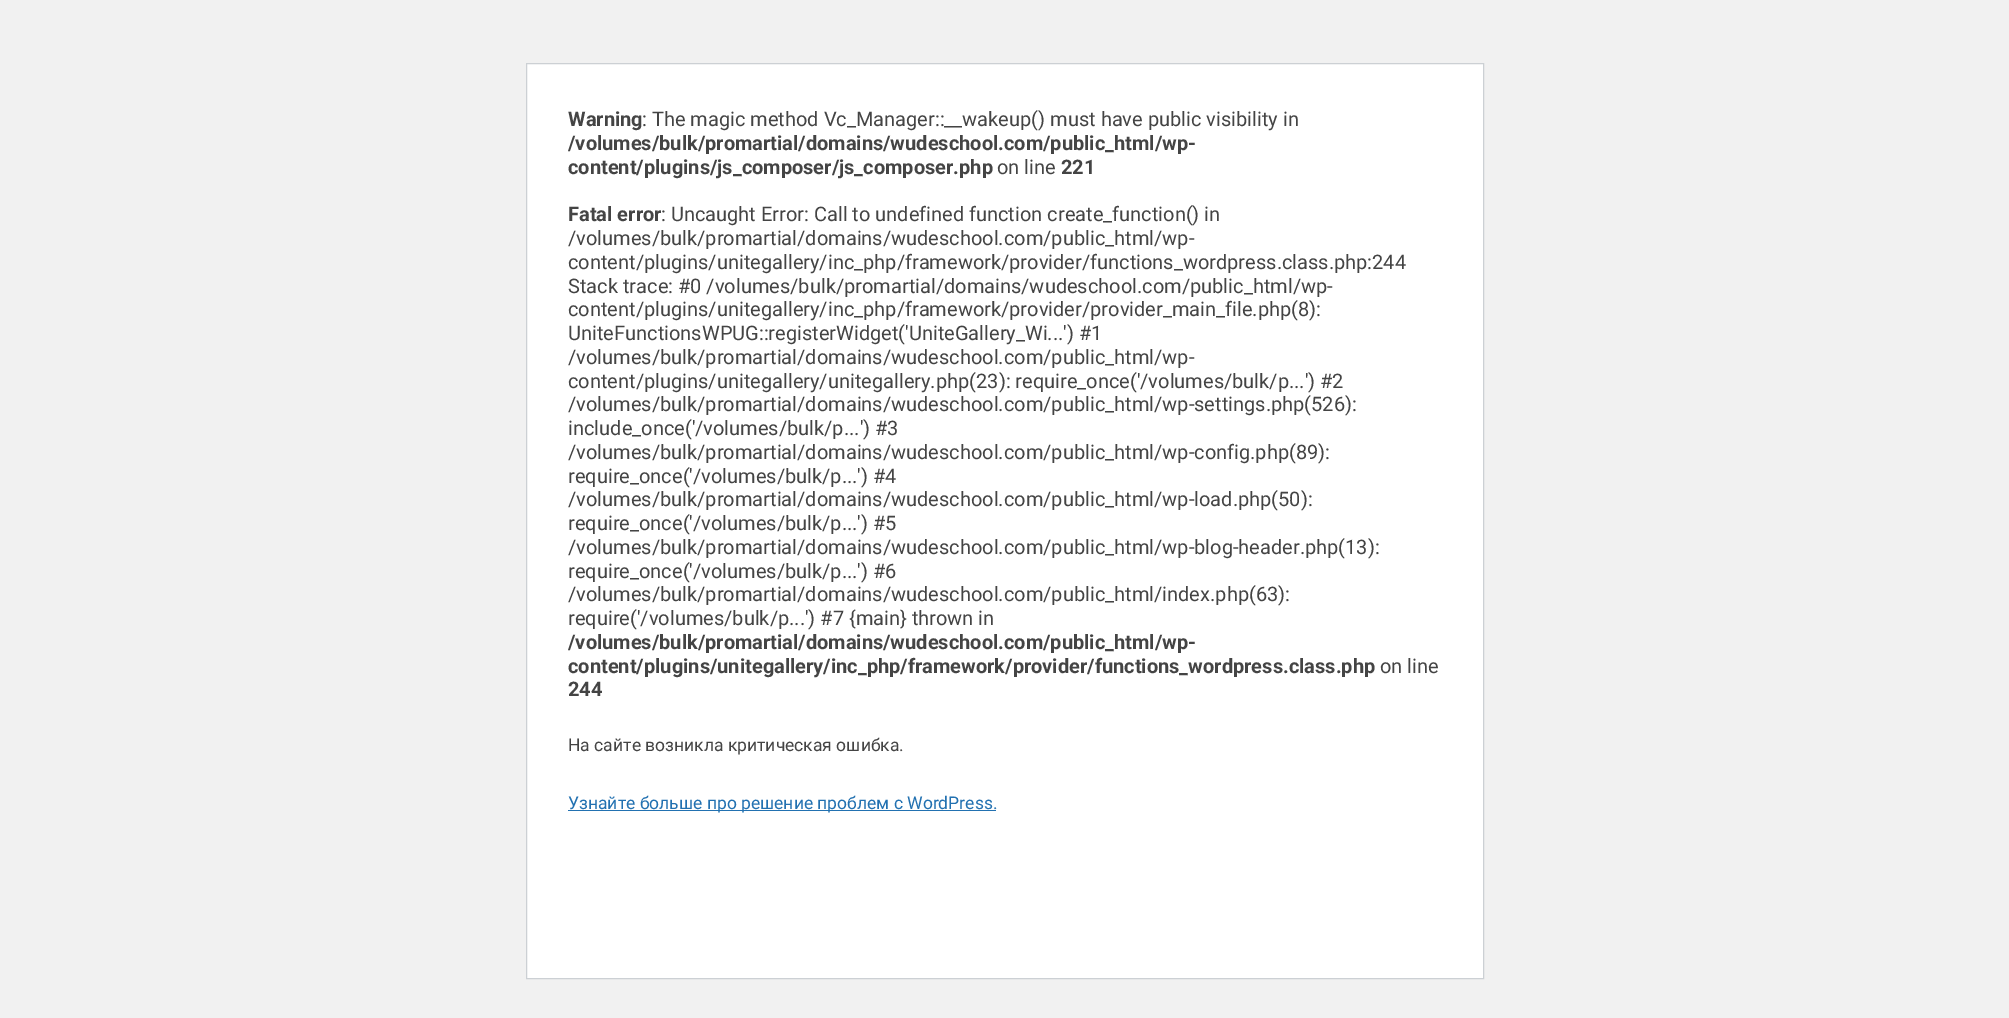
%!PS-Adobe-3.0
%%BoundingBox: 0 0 2009 1018
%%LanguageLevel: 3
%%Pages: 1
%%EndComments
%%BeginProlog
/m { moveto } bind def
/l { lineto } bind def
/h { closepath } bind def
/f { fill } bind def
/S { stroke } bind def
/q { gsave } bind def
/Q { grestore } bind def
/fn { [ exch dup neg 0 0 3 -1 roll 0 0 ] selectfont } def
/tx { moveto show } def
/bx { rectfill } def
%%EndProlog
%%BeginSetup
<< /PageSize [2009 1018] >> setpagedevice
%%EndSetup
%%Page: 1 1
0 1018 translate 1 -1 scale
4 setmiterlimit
0.945 setgray
0 0 2009 1018 bx
1 setgray
526.5 63.5 m 1483.5 63.5 l 1483.5 978.5 l 526.5 978.5 l h q f Q
0.8 0.816 0.831 setrgbcolor
S
/Roboto-Bold 20 fn
0.267 setgray
(Warning) 568 126 tx
/Roboto-Regular 20 fn
(: The magic method Vc_Manager::__wakeup\(\) must have public visibility in) 642 126 tx
/Roboto-Bold 20 fn
(/volumes/bulk/promartial/domains/wudeschool.com/public_html/wp-) 568 150 tx
(content/plugins/js_composer/js_composer.php) 568 174 tx
/Roboto-Regular 20 fn
(on line) 997 174 tx
/Roboto-Bold 20 fn
(221) 1061 174 tx
(Fatal error) 568 221 tx
/Roboto-Regular 20 fn
(: Uncaught Error: Call to undefined function create_function\(\) in) 661 221 tx
(/volumes/bulk/promartial/domains/wudeschool.com/public_html/wp-) 568 245 tx
(content/plugins/unitegallery/inc_php/framework/provider/functions_wordpress.class.php:244) 568 269 tx
(Stack trace: #0 /volumes/bulk/promartial/domains/wudeschool.com/public_html/wp-) 568 293 tx
(content/plugins/unitegallery/inc_php/framework/provider/provider_main_file.php\(8\):) 568 316 tx
(UniteFunctionsWPUG::registerWidget\('UniteGallery_Wi...'\) #1) 568 340 tx
(/volumes/bulk/promartial/domains/wudeschool.com/public_html/wp-) 568 364 tx
(content/plugins/unitegallery/unitegallery.php\(23\): require_once\('/volumes/bulk/p...'\) #2) 568 388 tx
(/volumes/bulk/promartial/domains/wudeschool.com/public_html/wp-settings.php\(526\):) 568 411 tx
(include_once\('/volumes/bulk/p...'\) #3) 568 435 tx
(/volumes/bulk/promartial/domains/wudeschool.com/public_html/wp-config.php\(89\):) 568 459 tx
(require_once\('/volumes/bulk/p...'\) #4) 568 483 tx
(/volumes/bulk/promartial/domains/wudeschool.com/public_html/wp-load.php\(50\):) 568 506 tx
(require_once\('/volumes/bulk/p...'\) #5) 568 530 tx
(/volumes/bulk/promartial/domains/wudeschool.com/public_html/wp-blog-header.php\(13\):) 568 554 tx
(require_once\('/volumes/bulk/p...'\) #6) 568 578 tx
(/volumes/bulk/promartial/domains/wudeschool.com/public_html/index.php\(63\):) 568 601 tx
(require\('/volumes/bulk/p...'\) #7 {main} thrown in) 568 625 tx
/Roboto-Bold 20 fn
(/volumes/bulk/promartial/domains/wudeschool.com/public_html/wp-) 568 649 tx
(content/plugins/unitegallery/inc_php/framework/provider/functions_wordpress.class.php) 568 673 tx
/Roboto-Regular 20 fn
(on line) 1380 673 tx
/Roboto-Bold 20 fn
(244) 568 696 tx
/Roboto-Regular 17.5 fn
(На сайте возникла критическая ошибка.) 568 751 tx
0.133 0.443 0.694 setrgbcolor
568 810 428 1 bx
(Узнайте больше про решение проблем с WordPress.) 568 809 tx
showpage
%%EOF
